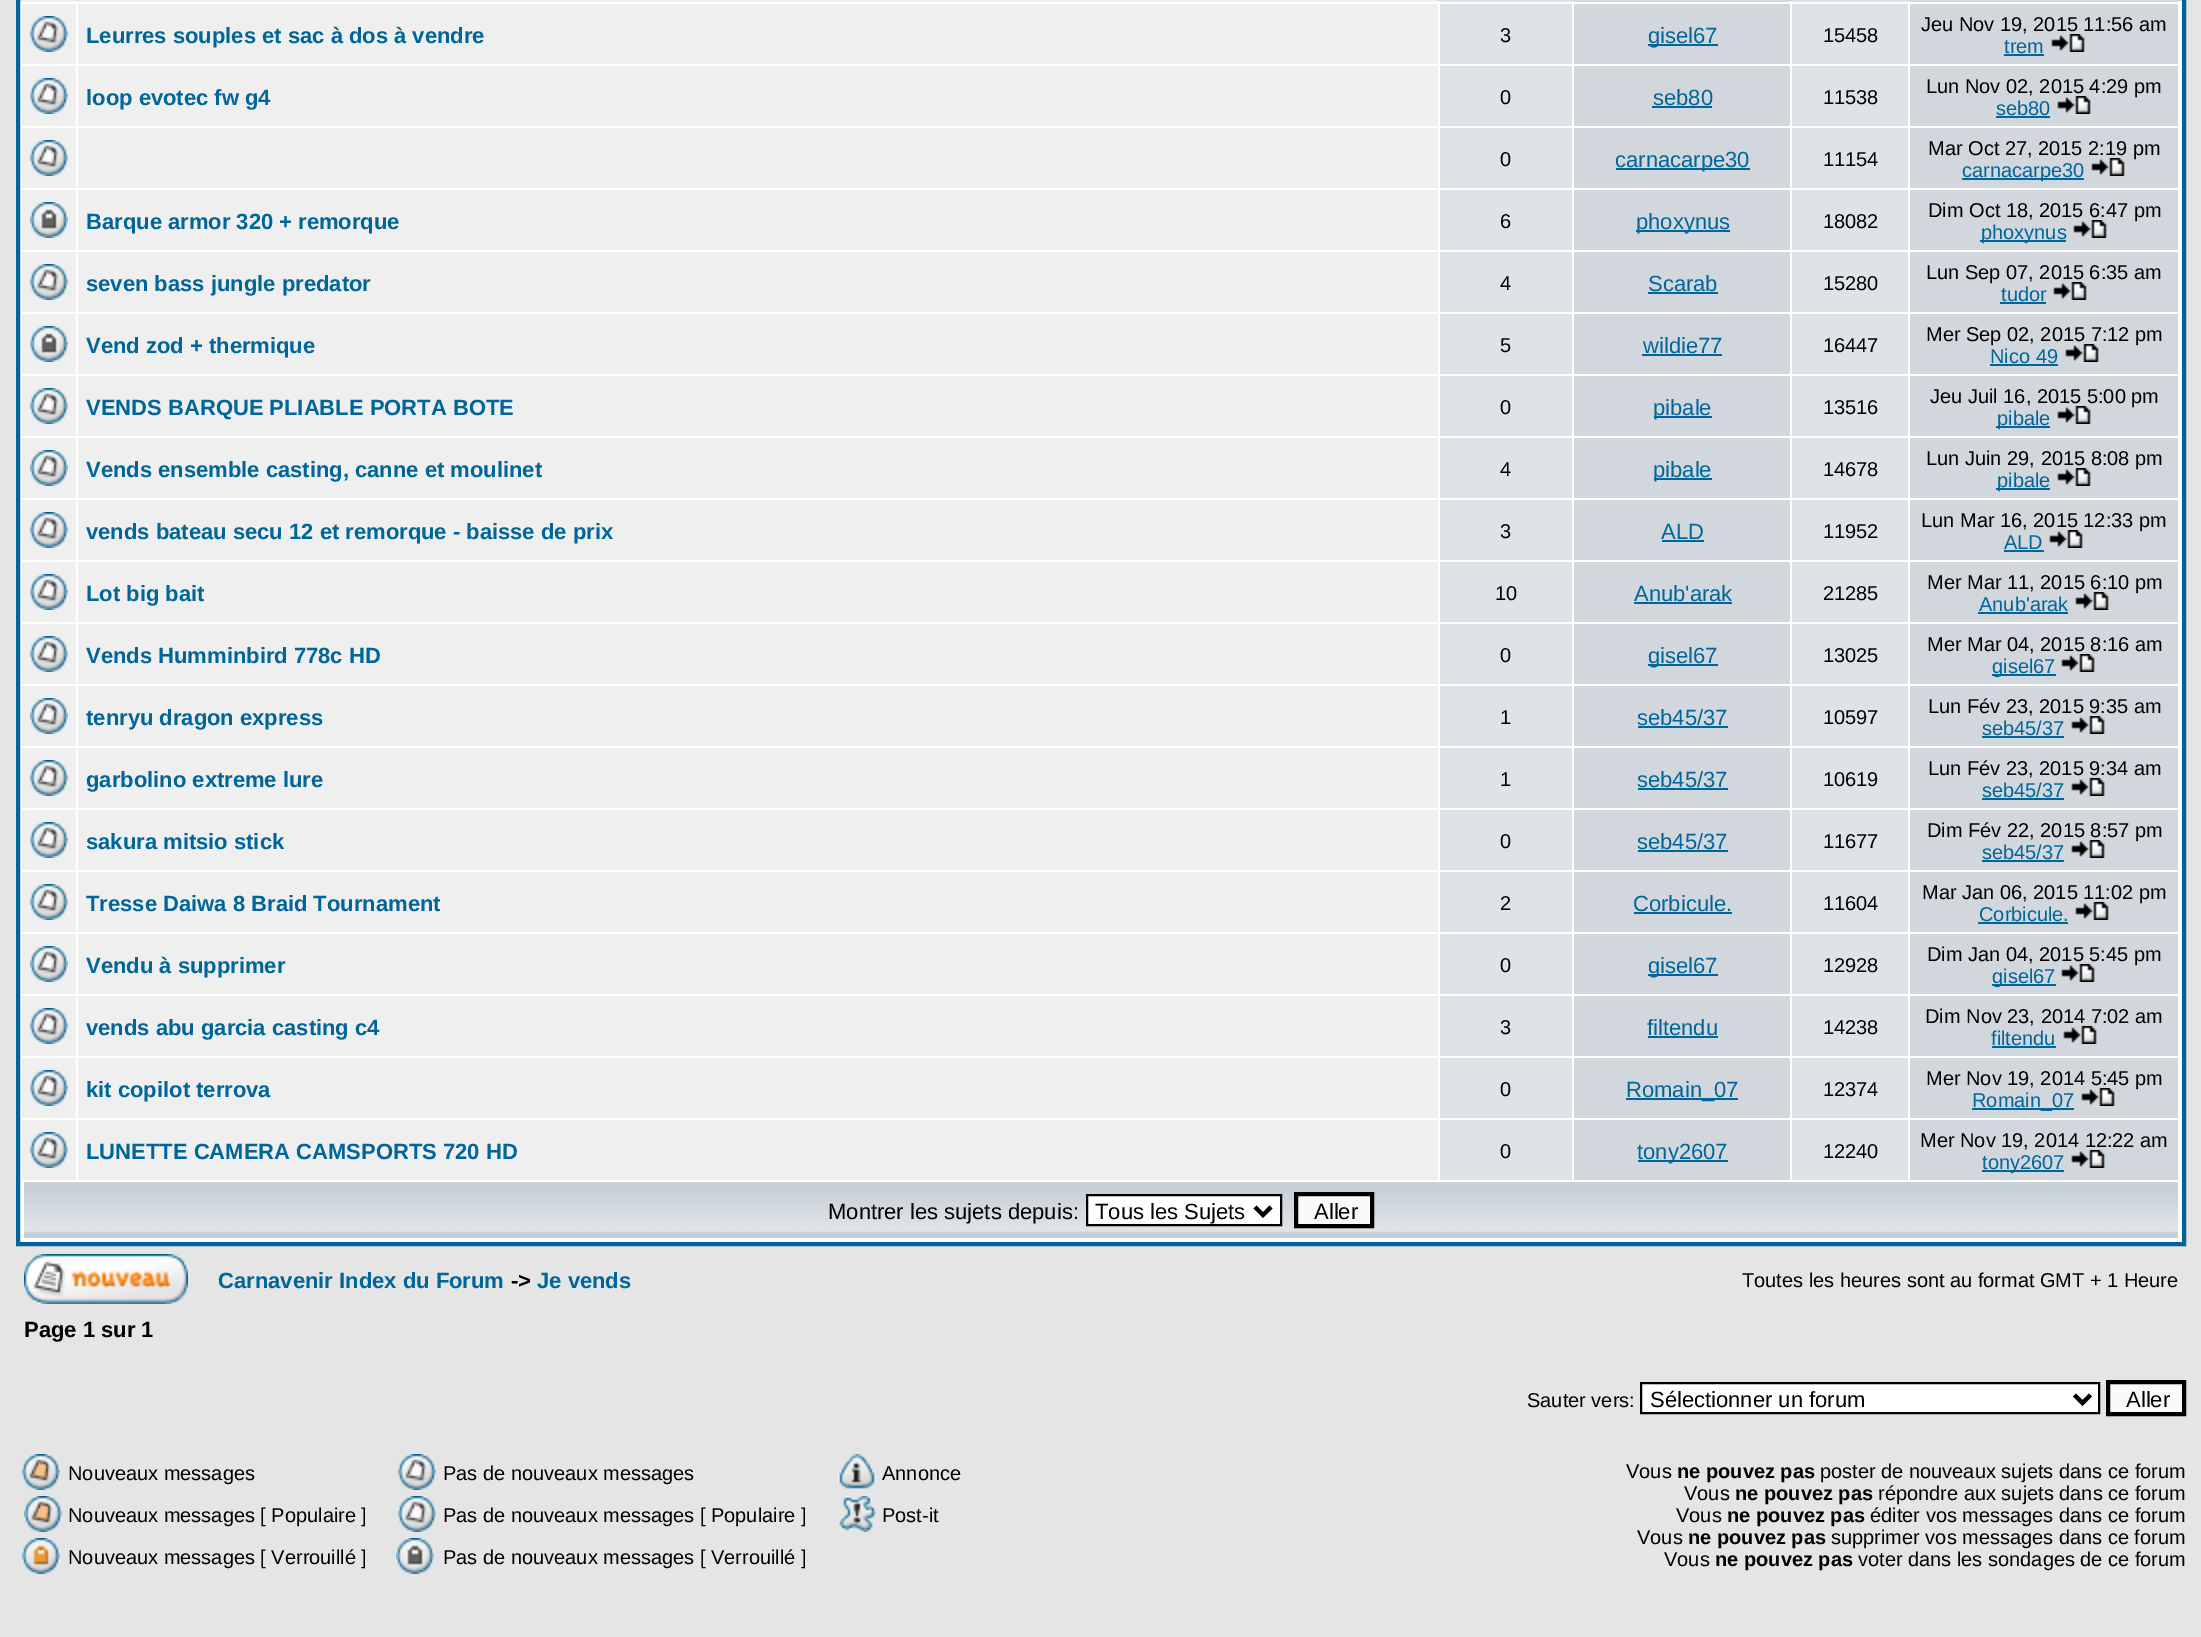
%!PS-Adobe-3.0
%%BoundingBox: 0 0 2201 1637
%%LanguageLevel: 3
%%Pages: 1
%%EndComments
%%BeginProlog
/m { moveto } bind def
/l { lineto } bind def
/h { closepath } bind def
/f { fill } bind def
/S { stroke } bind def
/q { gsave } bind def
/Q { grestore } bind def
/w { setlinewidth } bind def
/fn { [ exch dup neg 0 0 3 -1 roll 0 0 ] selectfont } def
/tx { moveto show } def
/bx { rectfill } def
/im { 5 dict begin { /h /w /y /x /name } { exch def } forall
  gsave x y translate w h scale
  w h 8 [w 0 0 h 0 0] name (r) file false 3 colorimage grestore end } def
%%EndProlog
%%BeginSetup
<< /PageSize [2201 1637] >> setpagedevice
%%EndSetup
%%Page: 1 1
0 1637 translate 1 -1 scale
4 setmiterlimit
0.898 setgray
0 0 2201 1637 bx
1 setgray
18 -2 m 2184 -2 l 2184 1244 l 18 1244 l h q f Q
0 0.4 0.6 setrgbcolor
4 w
S
0.937 setgray
22 0 54 2 bx
78 0 1360 2 bx
0.871 0.89 0.906 setrgbcolor
1440 0 132 2 bx
0.82 0.843 0.863 setrgbcolor
1574 0 216 2 bx
0.871 0.89 0.906 setrgbcolor
1792 0 116 2 bx
0.82 0.843 0.863 setrgbcolor
1910 0 268 2 bx
0.937 setgray
22 4 54 60 bx
(image0.raw) 30 16 38 36 im
78 4 1360 60 bx
/LiberationSans-Bold 22 fn
0 0.4 0.6 setrgbcolor
(Leurres souples et sac à dos à vendre) 86 43 tx
0.871 0.89 0.906 setrgbcolor
1440 4 132 60 bx
/LiberationSans-Regular 20 fn
0 setgray
(3) 1500 42 tx
0.82 0.843 0.863 setrgbcolor
1574 4 216 60 bx
0 0.4 0.6 setrgbcolor
1648 44 70 2 bx
/LiberationSans-Regular 22 fn
(gisel67) 1648 43 tx
0.871 0.89 0.906 setrgbcolor
1792 4 116 60 bx
/LiberationSans-Regular 20 fn
0 setgray
(15458) 1823 42 tx
0.82 0.843 0.863 setrgbcolor
1910 4 268 60 bx
0 setgray
(Jeu Nov 19, 2015 11:56 am) 1921 31 tx
0 0.4 0.6 setrgbcolor
(trem) 2004 53 tx
2004 54 40 2 bx
(image1.raw) 2051 34 34 18 im
0.937 setgray
22 66 54 60 bx
(image0.raw) 30 78 38 36 im
78 66 1360 60 bx
/LiberationSans-Bold 22 fn
0 0.4 0.6 setrgbcolor
(loop evotec fw g4) 86 105 tx
0.871 0.89 0.906 setrgbcolor
1440 66 132 60 bx
/LiberationSans-Regular 20 fn
0 setgray
(0) 1500 104 tx
0.82 0.843 0.863 setrgbcolor
1574 66 216 60 bx
/LiberationSans-Regular 22 fn
0 0.4 0.6 setrgbcolor
(seb80) 1653 105 tx
1652 106 60 2 bx
0.871 0.89 0.906 setrgbcolor
1792 66 116 60 bx
/LiberationSans-Regular 20 fn
0 setgray
(11538) 1823 104 tx
0.82 0.843 0.863 setrgbcolor
1910 66 268 60 bx
0 setgray
(Lun Nov 02, 2015 4:29 pm) 1926 93 tx
0 0.4 0.6 setrgbcolor
(seb80) 1996 115 tx
1996 116 54 2 bx
(image1.raw) 2057 96 34 18 im
0.937 setgray
22 128 54 60 bx
(image0.raw) 30 140 38 36 im
78 128 1360 60 bx
0.871 0.89 0.906 setrgbcolor
1440 128 132 60 bx
0 setgray
(0) 1500 166 tx
0.82 0.843 0.863 setrgbcolor
1574 128 216 60 bx
0 0.4 0.6 setrgbcolor
1616 168 134 2 bx
/LiberationSans-Regular 22 fn
(carnacarpe30) 1615 167 tx
0.871 0.89 0.906 setrgbcolor
1792 128 116 60 bx
/LiberationSans-Regular 20 fn
0 setgray
(11154) 1823 166 tx
0.82 0.843 0.863 setrgbcolor
1910 128 268 60 bx
0 setgray
(Mar Oct 27, 2015 2:19 pm) 1928 155 tx
0 0.4 0.6 setrgbcolor
1962 178 122 2 bx
(carnacarpe30) 1962 177 tx
(image1.raw) 2091 158 34 18 im
0.937 setgray
22 190 54 60 bx
(image2.raw) 30 202 38 36 im
78 190 1360 60 bx
/LiberationSans-Bold 22 fn
0 0.4 0.6 setrgbcolor
(Barque armor 320 + remorque) 86 229 tx
0.871 0.89 0.906 setrgbcolor
1440 190 132 60 bx
/LiberationSans-Regular 20 fn
0 setgray
(6) 1500 228 tx
0.82 0.843 0.863 setrgbcolor
1574 190 216 60 bx
0 0.4 0.6 setrgbcolor
1636 230 94 2 bx
/LiberationSans-Regular 22 fn
(phoxynus) 1636 229 tx
0.871 0.89 0.906 setrgbcolor
1792 190 116 60 bx
/LiberationSans-Regular 20 fn
0 setgray
(18082) 1823 228 tx
0.82 0.843 0.863 setrgbcolor
1910 190 268 60 bx
0 setgray
(Dim Oct 18, 2015 6:47 pm) 1928 217 tx
0 0.4 0.6 setrgbcolor
1980 240 86 2 bx
(phoxynus) 1981 239 tx
(image1.raw) 2073 220 34 18 im
0.937 setgray
22 252 54 60 bx
(image0.raw) 30 264 38 36 im
78 252 1360 60 bx
/LiberationSans-Bold 22 fn
0 0.4 0.6 setrgbcolor
(seven bass jungle predator) 86 291 tx
0.871 0.89 0.906 setrgbcolor
1440 252 132 60 bx
/LiberationSans-Regular 20 fn
0 setgray
(4) 1500 290 tx
0.82 0.843 0.863 setrgbcolor
1574 252 216 60 bx
/LiberationSans-Regular 22 fn
0 0.4 0.6 setrgbcolor
(Scarab) 1648 291 tx
1648 292 70 2 bx
0.871 0.89 0.906 setrgbcolor
1792 252 116 60 bx
/LiberationSans-Regular 20 fn
0 setgray
(15280) 1823 290 tx
0.82 0.843 0.863 setrgbcolor
1910 252 268 60 bx
0 setgray
(Lun Sep 07, 2015 6:35 am) 1926 279 tx
0 0.4 0.6 setrgbcolor
(tudor) 2001 301 tx
2000 302 46 2 bx
(image1.raw) 2053 282 34 18 im
0.937 setgray
22 314 54 60 bx
(image2.raw) 30 326 38 36 im
78 314 1360 60 bx
/LiberationSans-Bold 22 fn
0 0.4 0.6 setrgbcolor
(Vend zod + thermique) 86 353 tx
0.871 0.89 0.906 setrgbcolor
1440 314 132 60 bx
/LiberationSans-Regular 20 fn
0 setgray
(5) 1500 352 tx
0.82 0.843 0.863 setrgbcolor
1574 314 216 60 bx
/LiberationSans-Regular 22 fn
0 0.4 0.6 setrgbcolor
(wildie77) 1643 353 tx
1642 354 80 2 bx
0.871 0.89 0.906 setrgbcolor
1792 314 116 60 bx
/LiberationSans-Regular 20 fn
0 setgray
(16447) 1823 352 tx
0.82 0.843 0.863 setrgbcolor
1910 314 268 60 bx
0 setgray
(Mer Sep 02, 2015 7:12 pm) 1926 341 tx
0 0.4 0.6 setrgbcolor
(Nico 49) 1990 363 tx
1990 364 68 2 bx
(image1.raw) 2065 344 34 18 im
0.937 setgray
22 376 54 60 bx
(image0.raw) 30 388 38 36 im
78 376 1360 60 bx
/LiberationSans-Bold 22 fn
0 0.4 0.6 setrgbcolor
(VENDS BARQUE PLIABLE PORTA BOTE) 86 415 tx
0.871 0.89 0.906 setrgbcolor
1440 376 132 60 bx
/LiberationSans-Regular 20 fn
0 setgray
(0) 1500 414 tx
0.82 0.843 0.863 setrgbcolor
1574 376 216 60 bx
0 0.4 0.6 setrgbcolor
1654 416 58 2 bx
/LiberationSans-Regular 22 fn
(pibale) 1653 415 tx
0.871 0.89 0.906 setrgbcolor
1792 376 116 60 bx
/LiberationSans-Regular 20 fn
0 setgray
(13516) 1823 414 tx
0.82 0.843 0.863 setrgbcolor
1910 376 268 60 bx
0 setgray
(Jeu Juil 16, 2015 5:00 pm) 1930 403 tx
0 0.4 0.6 setrgbcolor
1996 426 54 2 bx
(pibale) 1997 425 tx
(image1.raw) 2057 406 34 18 im
0.937 setgray
22 438 54 60 bx
(image0.raw) 30 450 38 36 im
78 438 1360 60 bx
/LiberationSans-Bold 22 fn
0 0.4 0.6 setrgbcolor
(Vends ensemble casting, canne et moulinet) 86 477 tx
0.871 0.89 0.906 setrgbcolor
1440 438 132 60 bx
/LiberationSans-Regular 20 fn
0 setgray
(4) 1500 476 tx
0.82 0.843 0.863 setrgbcolor
1574 438 216 60 bx
0 0.4 0.6 setrgbcolor
1654 478 58 2 bx
/LiberationSans-Regular 22 fn
(pibale) 1653 477 tx
0.871 0.89 0.906 setrgbcolor
1792 438 116 60 bx
/LiberationSans-Regular 20 fn
0 setgray
(14678) 1823 476 tx
0.82 0.843 0.863 setrgbcolor
1910 438 268 60 bx
0 setgray
(Lun Juin 29, 2015 8:08 pm) 1926 465 tx
0 0.4 0.6 setrgbcolor
1996 488 54 2 bx
(pibale) 1997 487 tx
(image1.raw) 2057 468 34 18 im
0.937 setgray
22 500 54 60 bx
(image0.raw) 30 512 38 36 im
78 500 1360 60 bx
/LiberationSans-Bold 22 fn
0 0.4 0.6 setrgbcolor
(vends bateau secu 12 et remorque - baisse de prix) 86 539 tx
0.871 0.89 0.906 setrgbcolor
1440 500 132 60 bx
/LiberationSans-Regular 20 fn
0 setgray
(3) 1500 538 tx
0.82 0.843 0.863 setrgbcolor
1574 500 216 60 bx
/LiberationSans-Regular 22 fn
0 0.4 0.6 setrgbcolor
(ALD) 1661 539 tx
1662 540 42 2 bx
0.871 0.89 0.906 setrgbcolor
1792 500 116 60 bx
/LiberationSans-Regular 20 fn
0 setgray
(11952) 1823 538 tx
0.82 0.843 0.863 setrgbcolor
1910 500 268 60 bx
0 setgray
(Lun Mar 16, 2015 12:33 pm) 1921 527 tx
0 0.4 0.6 setrgbcolor
(ALD) 2004 549 tx
2004 550 40 2 bx
(image1.raw) 2049 530 34 18 im
0.937 setgray
22 562 54 60 bx
(image0.raw) 30 574 38 36 im
78 562 1360 60 bx
/LiberationSans-Bold 22 fn
0 0.4 0.6 setrgbcolor
(Lot big bait) 86 601 tx
0.871 0.89 0.906 setrgbcolor
1440 562 132 60 bx
/LiberationSans-Regular 20 fn
0 setgray
(10) 1495 600 tx
0.82 0.843 0.863 setrgbcolor
1574 562 216 60 bx
/LiberationSans-Regular 22 fn
0 0.4 0.6 setrgbcolor
(Anub'arak) 1634 601 tx
1634 602 98 2 bx
0.871 0.89 0.906 setrgbcolor
1792 562 116 60 bx
/LiberationSans-Regular 20 fn
0 setgray
(21285) 1823 600 tx
0.82 0.843 0.863 setrgbcolor
1910 562 268 60 bx
0 setgray
(Mer Mar 11, 2015 6:10 pm) 1927 589 tx
0 0.4 0.6 setrgbcolor
(Anub'arak) 1979 611 tx
1978 612 90 2 bx
(image1.raw) 2075 592 34 18 im
0.937 setgray
22 624 54 60 bx
(image0.raw) 30 636 38 36 im
78 624 1360 60 bx
/LiberationSans-Bold 22 fn
0 0.4 0.6 setrgbcolor
(Vends Humminbird 778c HD) 86 663 tx
0.871 0.89 0.906 setrgbcolor
1440 624 132 60 bx
/LiberationSans-Regular 20 fn
0 setgray
(0) 1500 662 tx
0.82 0.843 0.863 setrgbcolor
1574 624 216 60 bx
0 0.4 0.6 setrgbcolor
1648 664 70 2 bx
/LiberationSans-Regular 22 fn
(gisel67) 1648 663 tx
0.871 0.89 0.906 setrgbcolor
1792 624 116 60 bx
/LiberationSans-Regular 20 fn
0 setgray
(13025) 1823 662 tx
0.82 0.843 0.863 setrgbcolor
1910 624 268 60 bx
0 setgray
(Mer Mar 04, 2015 8:16 am) 1927 651 tx
0 0.4 0.6 setrgbcolor
1992 674 64 2 bx
(gisel67) 1992 673 tx
(image1.raw) 2061 654 34 18 im
0.937 setgray
22 686 54 60 bx
(image0.raw) 30 698 38 36 im
78 686 1360 60 bx
/LiberationSans-Bold 22 fn
0 0.4 0.6 setrgbcolor
(tenryu dragon express) 86 725 tx
0.871 0.89 0.906 setrgbcolor
1440 686 132 60 bx
/LiberationSans-Regular 20 fn
0 setgray
(1) 1500 724 tx
0.82 0.843 0.863 setrgbcolor
1574 686 216 60 bx
/LiberationSans-Regular 22 fn
0 0.4 0.6 setrgbcolor
(seb45/37) 1637 725 tx
1638 726 90 2 bx
0.871 0.89 0.906 setrgbcolor
1792 686 116 60 bx
/LiberationSans-Regular 20 fn
0 setgray
(10597) 1823 724 tx
0.82 0.843 0.863 setrgbcolor
1910 686 268 60 bx
0 setgray
(Lun Fév 23, 2015 9:35 am) 1928 713 tx
0 0.4 0.6 setrgbcolor
(seb45/37) 1982 735 tx
1982 736 82 2 bx
(image1.raw) 2071 716 34 18 im
0.937 setgray
22 748 54 60 bx
(image0.raw) 30 760 38 36 im
78 748 1360 60 bx
/LiberationSans-Bold 22 fn
0 0.4 0.6 setrgbcolor
(garbolino extreme lure) 86 787 tx
0.871 0.89 0.906 setrgbcolor
1440 748 132 60 bx
/LiberationSans-Regular 20 fn
0 setgray
(1) 1500 786 tx
0.82 0.843 0.863 setrgbcolor
1574 748 216 60 bx
/LiberationSans-Regular 22 fn
0 0.4 0.6 setrgbcolor
(seb45/37) 1637 787 tx
1638 788 90 2 bx
0.871 0.89 0.906 setrgbcolor
1792 748 116 60 bx
/LiberationSans-Regular 20 fn
0 setgray
(10619) 1823 786 tx
0.82 0.843 0.863 setrgbcolor
1910 748 268 60 bx
0 setgray
(Lun Fév 23, 2015 9:34 am) 1928 775 tx
0 0.4 0.6 setrgbcolor
(seb45/37) 1982 797 tx
1982 798 82 2 bx
(image1.raw) 2071 778 34 18 im
0.937 setgray
22 810 54 60 bx
(image0.raw) 30 822 38 36 im
78 810 1360 60 bx
/LiberationSans-Bold 22 fn
0 0.4 0.6 setrgbcolor
(sakura mitsio stick) 86 849 tx
0.871 0.89 0.906 setrgbcolor
1440 810 132 60 bx
/LiberationSans-Regular 20 fn
0 setgray
(0) 1500 848 tx
0.82 0.843 0.863 setrgbcolor
1574 810 216 60 bx
/LiberationSans-Regular 22 fn
0 0.4 0.6 setrgbcolor
(seb45/37) 1637 849 tx
1638 850 90 2 bx
0.871 0.89 0.906 setrgbcolor
1792 810 116 60 bx
/LiberationSans-Regular 20 fn
0 setgray
(11677) 1823 848 tx
0.82 0.843 0.863 setrgbcolor
1910 810 268 60 bx
0 setgray
(Dim Fév 22, 2015 8:57 pm) 1927 837 tx
0 0.4 0.6 setrgbcolor
(seb45/37) 1982 859 tx
1982 860 82 2 bx
(image1.raw) 2071 840 34 18 im
0.937 setgray
22 872 54 60 bx
(image0.raw) 30 884 38 36 im
78 872 1360 60 bx
/LiberationSans-Bold 22 fn
0 0.4 0.6 setrgbcolor
(Tresse Daiwa 8 Braid Tournament) 86 911 tx
0.871 0.89 0.906 setrgbcolor
1440 872 132 60 bx
/LiberationSans-Regular 20 fn
0 setgray
(2) 1500 910 tx
0.82 0.843 0.863 setrgbcolor
1574 872 216 60 bx
/LiberationSans-Regular 22 fn
0 0.4 0.6 setrgbcolor
(Corbicule.) 1633 911 tx
1634 912 98 2 bx
0.871 0.89 0.906 setrgbcolor
1792 872 116 60 bx
/LiberationSans-Regular 20 fn
0 setgray
(11604) 1823 910 tx
0.82 0.843 0.863 setrgbcolor
1910 872 268 60 bx
0 setgray
(Mar Jan 06, 2015 11:02 pm) 1922 899 tx
0 0.4 0.6 setrgbcolor
(Corbicule.) 1979 921 tx
1978 922 90 2 bx
(image1.raw) 2075 902 34 18 im
0.937 setgray
22 934 54 60 bx
(image0.raw) 30 946 38 36 im
78 934 1360 60 bx
/LiberationSans-Bold 22 fn
0 0.4 0.6 setrgbcolor
(Vendu à supprimer) 86 973 tx
0.871 0.89 0.906 setrgbcolor
1440 934 132 60 bx
/LiberationSans-Regular 20 fn
0 setgray
(0) 1500 972 tx
0.82 0.843 0.863 setrgbcolor
1574 934 216 60 bx
0 0.4 0.6 setrgbcolor
1648 974 70 2 bx
/LiberationSans-Regular 22 fn
(gisel67) 1648 973 tx
0.871 0.89 0.906 setrgbcolor
1792 934 116 60 bx
/LiberationSans-Regular 20 fn
0 setgray
(12928) 1823 972 tx
0.82 0.843 0.863 setrgbcolor
1910 934 268 60 bx
0 setgray
(Dim Jan 04, 2015 5:45 pm) 1927 961 tx
0 0.4 0.6 setrgbcolor
1992 984 64 2 bx
(gisel67) 1992 983 tx
(image1.raw) 2061 964 34 18 im
0.937 setgray
22 996 54 60 bx
(image0.raw) 30 1008 38 36 im
78 996 1360 60 bx
/LiberationSans-Bold 22 fn
0 0.4 0.6 setrgbcolor
(vends abu garcia casting c4) 86 1035 tx
0.871 0.89 0.906 setrgbcolor
1440 996 132 60 bx
/LiberationSans-Regular 20 fn
0 setgray
(3) 1500 1034 tx
0.82 0.843 0.863 setrgbcolor
1574 996 216 60 bx
/LiberationSans-Regular 22 fn
0 0.4 0.6 setrgbcolor
(filtendu) 1647 1035 tx
1648 1036 70 2 bx
0.871 0.89 0.906 setrgbcolor
1792 996 116 60 bx
/LiberationSans-Regular 20 fn
0 setgray
(14238) 1823 1034 tx
0.82 0.843 0.863 setrgbcolor
1910 996 268 60 bx
0 setgray
(Dim Nov 23, 2014 7:02 am) 1925 1023 tx
0 0.4 0.6 setrgbcolor
(filtendu) 1991 1045 tx
1992 1046 64 2 bx
(image1.raw) 2063 1026 34 18 im
0.937 setgray
22 1058 54 60 bx
(image0.raw) 30 1070 38 36 im
78 1058 1360 60 bx
/LiberationSans-Bold 22 fn
0 0.4 0.6 setrgbcolor
(kit copilot terrova) 86 1097 tx
0.871 0.89 0.906 setrgbcolor
1440 1058 132 60 bx
/LiberationSans-Regular 20 fn
0 setgray
(0) 1500 1096 tx
0.82 0.843 0.863 setrgbcolor
1574 1058 216 60 bx
0 0.4 0.6 setrgbcolor
1626 1098 112 2 bx
/LiberationSans-Regular 22 fn
(Romain_07) 1626 1097 tx
0.871 0.89 0.906 setrgbcolor
1792 1058 116 60 bx
/LiberationSans-Regular 20 fn
0 setgray
(12374) 1823 1096 tx
0.82 0.843 0.863 setrgbcolor
1910 1058 268 60 bx
0 setgray
(Mer Nov 19, 2014 5:45 pm) 1926 1085 tx
0 0.4 0.6 setrgbcolor
1972 1108 102 2 bx
(Romain_07) 1972 1107 tx
(image1.raw) 2081 1088 34 18 im
0.937 setgray
22 1120 54 60 bx
(image0.raw) 30 1132 38 36 im
78 1120 1360 60 bx
/LiberationSans-Bold 22 fn
0 0.4 0.6 setrgbcolor
(LUNETTE CAMERA CAMSPORTS 720 HD) 86 1159 tx
0.871 0.89 0.906 setrgbcolor
1440 1120 132 60 bx
/LiberationSans-Regular 20 fn
0 setgray
(0) 1500 1158 tx
0.82 0.843 0.863 setrgbcolor
1574 1120 216 60 bx
0 0.4 0.6 setrgbcolor
1638 1160 90 2 bx
/LiberationSans-Regular 22 fn
(tony2607) 1637 1159 tx
0.871 0.89 0.906 setrgbcolor
1792 1120 116 60 bx
/LiberationSans-Regular 20 fn
0 setgray
(12240) 1823 1158 tx
0.82 0.843 0.863 setrgbcolor
1910 1120 268 60 bx
0 setgray
(Mer Nov 19, 2014 12:22 am) 1920 1147 tx
0 0.4 0.6 setrgbcolor
1982 1170 82 2 bx
(tony2607) 1982 1169 tx
(image1.raw) 2071 1150 34 18 im
(image3.raw) 24 1182 2154 56 im
/LiberationSans-Regular 22 fn
0 setgray
(Montrer les sujets depuis:) 828 1219 tx
1 setgray
1087 1195 m 1281 1195 l 1281 1225 l 1087 1225 l h q f Q
0 setgray
2 w
S
4 w
1255 1207 m 1263 1215 l 1271 1207 l S
(Tous les Sujets) 1095 1219 tx
0.98 setgray
1296 1194 m 1372 1194 l 1372 1226 l 1296 1226 l h q f Q
0 setgray
S
(Aller) 1314 1219 tx
(image4.raw) 24 1254 164 50 im
/LiberationSans-Bold 22 fn
0 0.4 0.6 setrgbcolor
(Carnavenir Index du Forum) 218 1288 tx
0 setgray
(->) 511 1288 tx
0 0.4 0.6 setrgbcolor
(Je vends) 537 1288 tx
/LiberationSans-Regular 20 fn
0 setgray
(Toutes les heures sont au format GMT + 1 Heure) 1742 1287 tx
/LiberationSans-Bold 22 fn
(Page 1 sur 1) 24 1337 tx
/LiberationSans-Regular 20 fn
(Sauter vers:) 1527 1407 tx
1 setgray
1641 1383 m 2099 1383 l 2099 1413 l 1641 1413 l h q f Q
0 setgray
2 w
S
4 w
2074.5 1395 m 2082.5 1403 l 2090.5 1395 l S
/LiberationSans-Regular 22 fn
(Sélectionner un forum) 1650 1407 tx
0.98 setgray
2108 1382 m 2184 1382 l 2184 1414 l 2108 1414 l h q f Q
0 setgray
S
(Aller) 2126 1407 tx
(image5.raw) 22 1454 38 36 im
/LiberationSans-Regular 20 fn
(Nouveaux messages) 68 1480 tx
(image6.raw) 398 1454 38 36 im
(Pas de nouveaux messages) 443 1480 tx
(image7.raw) 838 1454 38 35 im
(Annonce) 882 1480 tx
(image8.raw) 24 1496 38 36 im
(Nouveaux messages [ Populaire ]) 68 1522 tx
(image9.raw) 398 1496 38 36 im
(Pas de nouveaux messages [ Populaire ]) 443 1522 tx
(image10.raw) 839 1496 37 36 im
(Post-it) 882 1522 tx
(image11.raw) 22 1538 38 36 im
(Nouveaux messages [ Verrouillé ]) 68 1564 tx
(image12.raw) 396 1538 38 36 im
(Pas de nouveaux messages [ Verrouillé ]) 443 1564 tx
(Vous) 1626 1478 tx
/LiberationSans-Bold 20 fn
(ne pouvez pas) 1677 1478 tx
/LiberationSans-Regular 20 fn
(poster de nouveaux sujets dans ce forum) 1820 1478 tx
(Vous) 1684 1500 tx
/LiberationSans-Bold 20 fn
(ne pouvez pas) 1735 1500 tx
/LiberationSans-Regular 20 fn
(répondre aux sujets dans ce forum) 1878 1500 tx
(Vous) 1676 1522 tx
/LiberationSans-Bold 20 fn
(ne pouvez pas) 1727 1522 tx
/LiberationSans-Regular 20 fn
(éditer vos messages dans ce forum) 1870 1522 tx
(Vous) 1637 1544 tx
/LiberationSans-Bold 20 fn
(ne pouvez pas) 1688 1544 tx
/LiberationSans-Regular 20 fn
(supprimer vos messages dans ce forum) 1831 1544 tx
(Vous) 1664 1566 tx
/LiberationSans-Bold 20 fn
(ne pouvez pas) 1715 1566 tx
/LiberationSans-Regular 20 fn
(voter dans les sondages de ce forum) 1858 1566 tx
showpage
%%EOF
